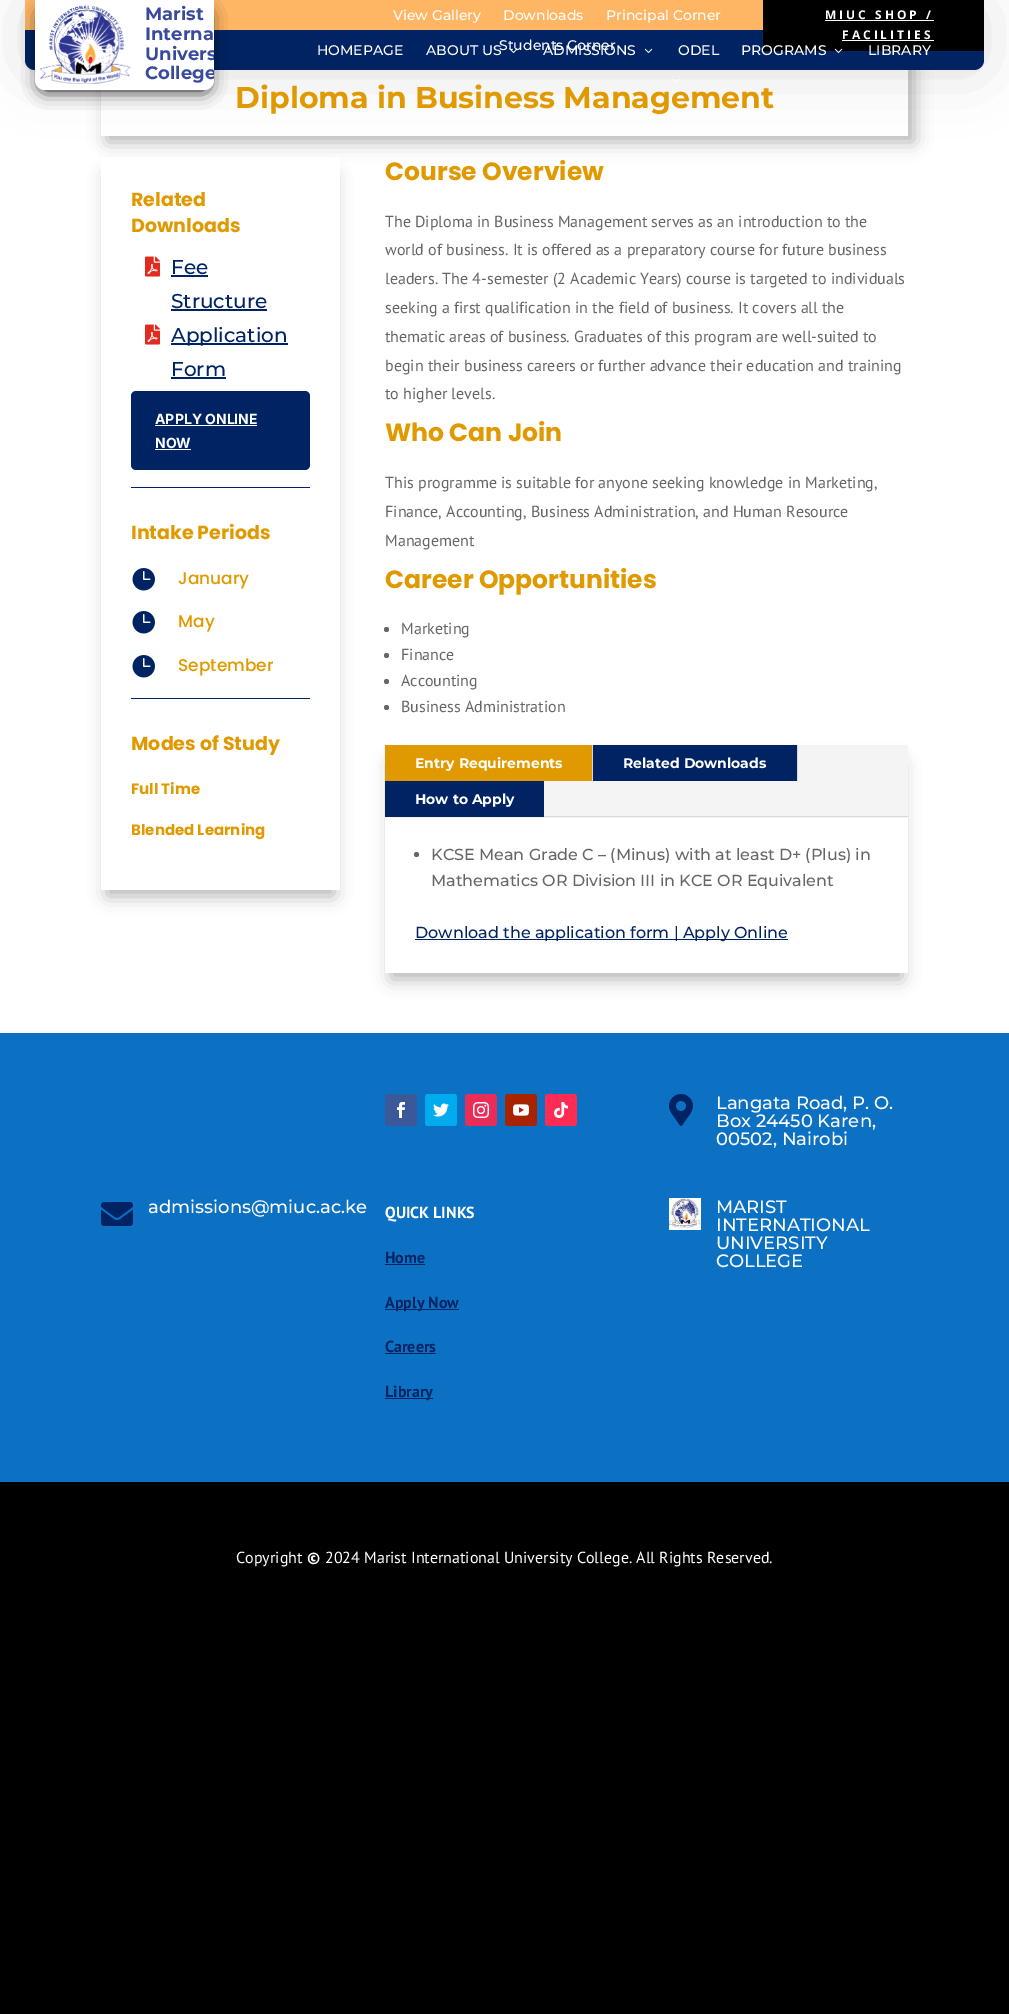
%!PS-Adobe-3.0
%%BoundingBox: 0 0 1009 2014
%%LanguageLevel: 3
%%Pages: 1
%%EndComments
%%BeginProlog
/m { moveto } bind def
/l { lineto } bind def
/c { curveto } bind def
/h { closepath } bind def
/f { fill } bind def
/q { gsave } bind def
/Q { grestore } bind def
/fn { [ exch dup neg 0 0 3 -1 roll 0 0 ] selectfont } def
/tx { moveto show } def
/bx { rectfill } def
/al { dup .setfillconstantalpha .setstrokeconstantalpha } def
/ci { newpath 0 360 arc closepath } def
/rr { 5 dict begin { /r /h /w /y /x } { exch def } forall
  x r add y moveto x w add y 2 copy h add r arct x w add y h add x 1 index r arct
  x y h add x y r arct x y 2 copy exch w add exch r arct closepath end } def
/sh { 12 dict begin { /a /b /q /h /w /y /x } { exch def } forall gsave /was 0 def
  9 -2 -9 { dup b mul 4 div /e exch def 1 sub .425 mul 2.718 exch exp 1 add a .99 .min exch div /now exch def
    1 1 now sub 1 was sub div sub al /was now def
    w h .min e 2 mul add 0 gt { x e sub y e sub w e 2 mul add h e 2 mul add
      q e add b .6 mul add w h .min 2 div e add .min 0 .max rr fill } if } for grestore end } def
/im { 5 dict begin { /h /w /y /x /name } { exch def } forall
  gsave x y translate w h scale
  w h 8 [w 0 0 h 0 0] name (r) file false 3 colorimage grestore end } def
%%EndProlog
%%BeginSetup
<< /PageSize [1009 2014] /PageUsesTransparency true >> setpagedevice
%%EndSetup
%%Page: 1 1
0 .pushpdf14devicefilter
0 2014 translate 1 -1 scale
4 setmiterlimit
0 setgray
0 0 1009 2014 bx
1 setgray
0 0 1009 1033 bx
q
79 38 m 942 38 l 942 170 l 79 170 l h 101 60 m 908 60 l 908 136 l 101 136 l h eoclip newpath
0 setgray
107 66 807 76 0 9 0.3 sh
Q
0 setgray
107 175 227 721 0 9 0.3 sh
1 setgray
101 157 239 733 bx
0 setgray
25 2 959 70 10 30 0.13 sh
0 0.137 0.388 setrgbcolor
25 0 m 984 0 l 984 60 l 984 65.5 979.5 70 974 70 c 35 70 l 29.5 70 25 65.5 25 60 c h f
0.996 0.71 0.392 setrgbcolor
25 0 738 30 bx
0 setgray
41 12 167 78 4 9 1 sh
1 setgray
35 0 m 214 0 l 214 80 l 214 85.5 209.5 90 204 90 c 45 90 l 39.5 90 35 85.5 35 80 c h f
(image0.raw) 40 5 91 79 im
/Montserrat-Bold 18 fn
0.224 0.286 0.612 setrgbcolor
(Marist) 145 20 tx
(Interna) 145 40 tx
q
35 0 m 214 0 l 214 80 l 214 85.5 209.5 90 204 90 c 45 90 l 39.5 90 35 85.5 35 80 c h clip newpath
(Univers) 145 60 tx
(College) 145 79 tx
Q
/Montserrat-Medium 14 fn
1 setgray
(View Gallery) 393 20 tx
(Downloads) 503 20 tx
(Principal Corner) 606 20 tx
(Students Corner) 499 50 tx
0 setgray
763 0 221 51 bx
/OpenSans-Bold 12 fn
1 setgray
825 19 m 3 0 (MIUC SHOP /) ashow
825 20 109 1 bx
842 39 m 3 0 (FACILITIES) ashow
842 40 92 1 bx
/Montserrat-Medium 14 fn
(HOMEPAGE) 317 55 tx
(ABOUT US) 426 55 tx
(image1.raw) 509 48 8 5 im
(ADMISSIONS) 543 55 tx
(image2.raw) 644 48 9 5 im
(ODEL) 678 55 tx
(PROGRAMS) 741 55 tx
(image3.raw) 834 48 9 5 im
(LIBRARY) 868 55 tx
(image4.raw) 673 79 7 4 im
/Montserrat-Bold 30 fn
0.878 0.6 0 setrgbcolor
(Diploma in Business Management) 235 108 tx
/Poppins-Bold 19 fn
(Related) 131 206 tx
(Downloads) 131 232 tx
(image5.raw) 145 256 15 21 im
/Montserrat-Medium 20 fn
0 0.137 0.388 setrgbcolor
(Fee) 171 274 tx
171 275 37 2 bx
(Structure) 171 308 tx
171 309 96 2 bx
(image5.raw) 145 324 15 21 im
171 343 117 2 bx
(Application) 171 342 tx
(Form) 171 376 tx
171 377 55 2 bx
131 391 179 79 5 rr f
/Inter-Bold 14 fn
1 setgray
(APPLY ONLINE) 155 424 tx
155 425 102 1 bx
(NOW) 155 448 tx
155 449 36 1 bx
0 0.137 0.388 setrgbcolor
131 487 179 1 bx
/Poppins-Bold 19 fn
0.878 0.6 0 setrgbcolor
(Intake Periods) 131 539 tx
(image6.raw) 132 568 23 23 im
/Poppins-Medium 17 fn
(January) 178 584 tx
(image6.raw) 132 611 23 23 im
(May) 178 627 tx
(image6.raw) 132 655 23 23 im
(September) 178 671 tx
0 0.137 0.388 setrgbcolor
131 698 179 1 bx
/Poppins-Bold 19 fn
0.878 0.6 0 setrgbcolor
(Modes of Study) 131 750 tx
/Poppins-Bold 15 fn
(Full Time) 131 794 tx
(Blended Learning) 131 835 tx
/Poppins-Bold 25 fn
(Course Overview) 385 180 tx
/PTSans-Regular 16 fn
0.4 setgray
(The Diploma in Business Management serves as an introduction to the) 385 227 tx
(world of business. It is offered as a preparatory course for future business) 385 255 tx
(leaders. The 4-semester \(2 Academic Years\) course is targeted to individuals) 385 284 tx
(seeking a first qualification in the field of business. It covers all the) 385 313 tx
(thematic areas of business. Graduates of this program are well-suited to) 385 342 tx
(begin their business careers or further advance their education and training) 385 371 tx
(to higher levels.) 385 399 tx
/Poppins-Bold 25 fn
0.878 0.6 0 setrgbcolor
(Who Can Join) 385 441 tx
/PTSans-Regular 16 fn
0.4 setgray
(This programme is suitable for anyone seeking knowledge in Marketing,) 385 488 tx
(Finance, Accounting, Business Administration, and Human Resource) 385 517 tx
(Management) 385 546 tx
/Poppins-Bold 25 fn
0.878 0.6 0 setrgbcolor
(Career Opportunities) 385 588 tx
0.4 setgray
386.5 629.5 2.5 ci f
/PTSans-Regular 16 fn
(Marketing) 401 634 tx
386.5 655.5 2.5 ci f
(Finance) 401 660 tx
386.5 681.5 2.5 ci f
(Accounting) 401 686 tx
386.5 707.5 2.5 ci f
(Business Administration) 401 712 tx
q
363 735 m 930 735 l 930 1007 l 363 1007 l h 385 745 m 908 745 l 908 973 l 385 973 l h eoclip newpath
0 setgray
391 763 511 216 0 9 0.3 sh
Q
0.957 setgray
385 745 523 73 bx
0.878 0.6 0 setrgbcolor
385 745 207 36 bx
0.851 setgray
592 745 1 36 bx
/Montserrat-Bold 14 fn
1 setgray
(Entry Requirements) 415 768 tx
0 0.137 0.388 setrgbcolor
593 745 204 36 bx
0.851 setgray
797 745 1 36 bx
1 setgray
(Related Downloads) 623 768 tx
0 0.137 0.388 setrgbcolor
385 781 159 36 bx
1 setgray
(How to Apply) 415 804 tx
0.851 setgray
544 816 364 1 bx
0.4 setgray
416.5 854.5 2.5 ci f
/Montserrat-Medium 16 fn
(KCSE Mean Grade C – \(Minus\) with at least D+ \(Plus\) in) 431 860 tx
(Mathematics OR Division III in KCE OR Equivalent) 431 886 tx
0 0.137 0.388 setrgbcolor
415 939 373 1 bx
(Download the application form | Apply Online) 415 938 tx
0.047 0.443 0.765 setrgbcolor
0 1033 1009 449 bx
0.231 0.349 0.596 setrgbcolor
385 1094 32 32 3 rr f
(image7.raw) 397 1102 8 16 im
0 0.675 0.929 setrgbcolor
425 1094 32 32 3 rr f
(image8.raw) 433 1103 16 14 im
0.918 0.173 0.349 setrgbcolor
465 1094 32 32 3 rr f
(image9.raw) 473 1102 16 16 im
0.659 0.141 0 setrgbcolor
505 1094 32 32 3 rr f
(image10.raw) 513 1104 16 12 im
0.996 0.173 0.333 setrgbcolor
545 1094 32 32 3 rr f
(image11.raw) 554 1102 14 16 im
(image12.raw) 669 1094 24 32 im
/Montserrat-Medium 18 fn
1 setgray
(Langata Road, P. O.) 716 1109 tx
(Box 24450 Karen,) 716 1127 tx
(00502, Nairobi) 716 1145 tx
(image13.raw) 101 1202 32 24 im
(admissions@miuc.ac.ke) 148 1213 tx
/PTSans-Bold 16 fn
(QUICK LINKS) 385 1218 tx
0 0.137 0.388 setrgbcolor
(Home) 385 1263 tx
385 1264 40 1 bx
385 1309 74 1 bx
(Apply Now) 385 1308 tx
(Careers) 385 1352 tx
385 1353 51 1 bx
385 1398 48 1 bx
(Library) 385 1397 tx
(image14.raw) 669 1198 32 32 im
/Montserrat-Medium 18 fn
1 setgray
(MARIST) 716 1213 tx
(INTERNATIONAL) 716 1231 tx
(UNIVERSITY) 716 1249 tx
(COLLEGE) 716 1267 tx
/PTSans-Regular 16 fn
(Copyright) 236 1563 tx
/PTSans-Bold 16 fn
(©) 307 1563 tx
/PTSans-Regular 16 fn
(2024 Marist International University College. All Rights Reserved.) 325 1563 tx
.poppdf14devicefilter showpage
%%EOF
